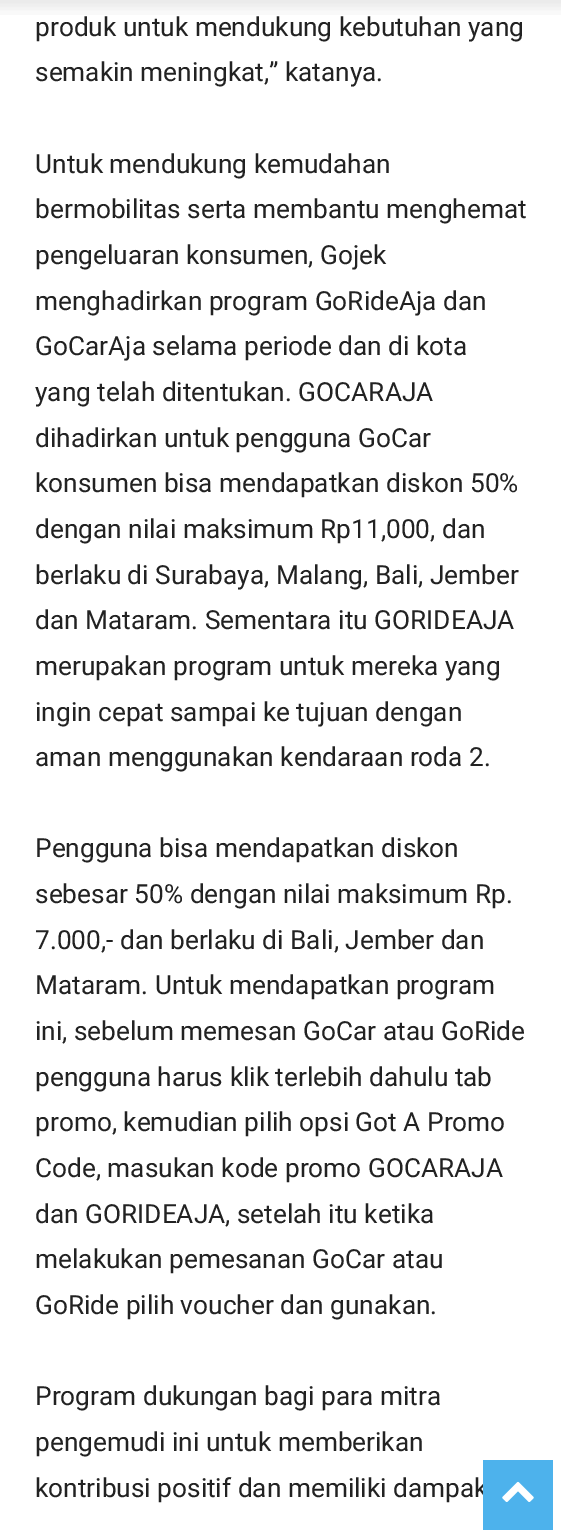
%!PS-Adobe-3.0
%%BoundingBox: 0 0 561 1535
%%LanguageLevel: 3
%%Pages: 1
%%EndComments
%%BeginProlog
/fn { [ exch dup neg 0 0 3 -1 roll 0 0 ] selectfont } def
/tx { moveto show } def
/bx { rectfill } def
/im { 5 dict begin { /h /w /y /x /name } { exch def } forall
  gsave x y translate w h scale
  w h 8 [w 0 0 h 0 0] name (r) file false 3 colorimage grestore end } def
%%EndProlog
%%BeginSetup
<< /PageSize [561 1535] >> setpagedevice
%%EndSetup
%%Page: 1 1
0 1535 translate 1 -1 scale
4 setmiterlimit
1 setgray
0 0 561 1535 bx
(image0.raw) 0 0 561 15 im
/Roboto-Regular 26.25 fn
0.133 setgray
(produk untuk mendukung kebutuhan yang) 35 36 tx
(semakin meningkat,” katanya.) 35 81 tx
(Untuk mendukung kemudahan) 35 173 tx
(bermobilitas serta membantu menghemat) 35 218 tx
(pengeluaran konsumen, Gojek) 35 264 tx
(menghadirkan program GoRideAja dan) 35 310 tx
(GoCarAja selama periode dan di kota) 35 355 tx
(yang telah ditentukan. GOCARAJA) 35 401 tx
(dihadirkan untuk pengguna GoCar) 35 447 tx
(konsumen bisa mendapatkan diskon 50%) 35 492 tx
(dengan nilai maksimum Rp11,000, dan) 35 538 tx
(berlaku di Surabaya, Malang, Bali, Jember) 35 584 tx
(dan Mataram. Sementara itu GORIDEAJA) 35 629 tx
(merupakan program untuk mereka yang) 35 675 tx
(ingin cepat sampai ke tujuan dengan) 35 721 tx
(aman menggunakan kendaraan roda 2.) 35 766 tx
(Pengguna bisa mendapatkan diskon) 35 857 tx
(sebesar 50% dengan nilai maksimum Rp.) 35 903 tx
(7.000,- dan berlaku di Bali, Jember dan) 35 949 tx
(Mataram. Untuk mendapatkan program) 35 994 tx
(ini, sebelum memesan GoCar atau GoRide) 35 1040 tx
(pengguna harus klik terlebih dahulu tab) 35 1086 tx
(promo, kemudian pilih opsi Got A Promo) 35 1131 tx
(Code, masukan kode promo GOCARAJA) 35 1177 tx
(dan GORIDEAJA, setelah itu ketika) 35 1223 tx
(melakukan pemesanan GoCar atau) 35 1268 tx
(GoRide pilih voucher dan gunakan.) 35 1314 tx
(Program dukungan bagi para mitra) 35 1405 tx
(pengemudi ini untuk memberikan) 35 1451 tx
(kontribusi positif dan memiliki dampak) 35 1497 tx
0.302 0.698 0.925 setrgbcolor
483 1460 70 70 bx
(image1.raw) 502 1481 32 21 im
showpage
%%EOF
